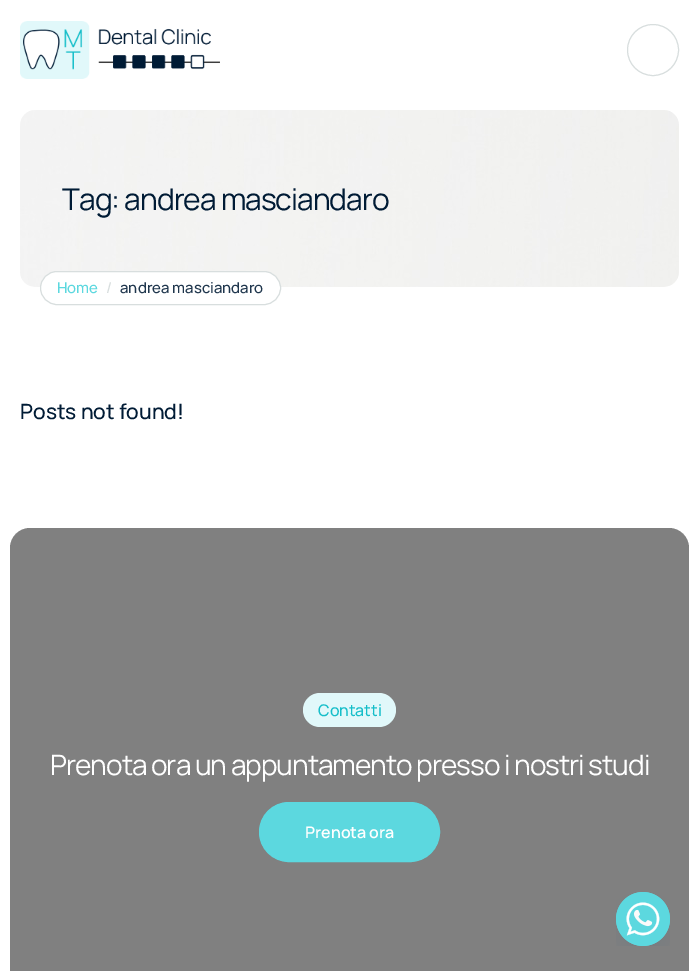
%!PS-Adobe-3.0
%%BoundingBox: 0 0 699 971
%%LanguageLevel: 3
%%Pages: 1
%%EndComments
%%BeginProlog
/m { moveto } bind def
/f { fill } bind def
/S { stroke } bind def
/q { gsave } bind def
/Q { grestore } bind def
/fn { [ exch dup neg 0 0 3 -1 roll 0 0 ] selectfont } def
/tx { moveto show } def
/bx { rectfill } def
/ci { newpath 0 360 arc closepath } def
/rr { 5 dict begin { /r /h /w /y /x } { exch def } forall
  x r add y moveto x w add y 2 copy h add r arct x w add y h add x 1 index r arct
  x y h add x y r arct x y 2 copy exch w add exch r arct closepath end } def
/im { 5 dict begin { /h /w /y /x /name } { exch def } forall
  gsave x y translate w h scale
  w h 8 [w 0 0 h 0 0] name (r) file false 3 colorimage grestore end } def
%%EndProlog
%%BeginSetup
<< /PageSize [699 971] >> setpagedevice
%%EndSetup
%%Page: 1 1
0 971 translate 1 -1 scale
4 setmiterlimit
1 setgray
0 0 699 971 bx
(image0.raw) 20 21 200 58 im
0.847 0.871 0.871 setrgbcolor
653 50 25.5 ci S
(image1.raw) 20 110 659 177 im
/Manrope-ExtraLight 30 fn
0 0.106 0.208 setrgbcolor
62 210 m -1 0 (Tag: andrea masciandaro) ashow
1 setgray
40.5 271.5 240 33 16.5 rr q f Q
0.847 0.871 0.871 setrgbcolor
S
/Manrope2-ExtraLight 15 fn
0.361 0.847 0.875 setrgbcolor
(Home) 57 293 tx
0.847 0.871 0.871 setrgbcolor
(/) 106 293 tx
0.122 0.212 0.302 setrgbcolor
(andrea masciandaro) 120 293 tx
/Manrope2-ExtraLight 21 fn
0 0.106 0.208 setrgbcolor
(Posts not found!) 20 419 tx
0.502 setgray
10 528 679 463 20 rr f
0.882 0.973 0.98 setrgbcolor
303 693 93 34 17 rr f
/Manrope2-ExtraLight 16 fn
0.078 0.745 0.788 setrgbcolor
(Contatti) 318 716 tx
/Manrope-ExtraLight 28 fn
1 setgray
50 775 m -1 0 (Prenota ora un appuntamento presso i nostri studi) ashow
0.361 0.847 0.875 setrgbcolor
259.5 802.5 180 59 29.5 rr q f Q
S
/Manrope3-ExtraLight 16 fn
1 setgray
(Prenota ora) 305 838 tx
(image2.raw) 616 892 54 54 im
showpage
%%EOF
